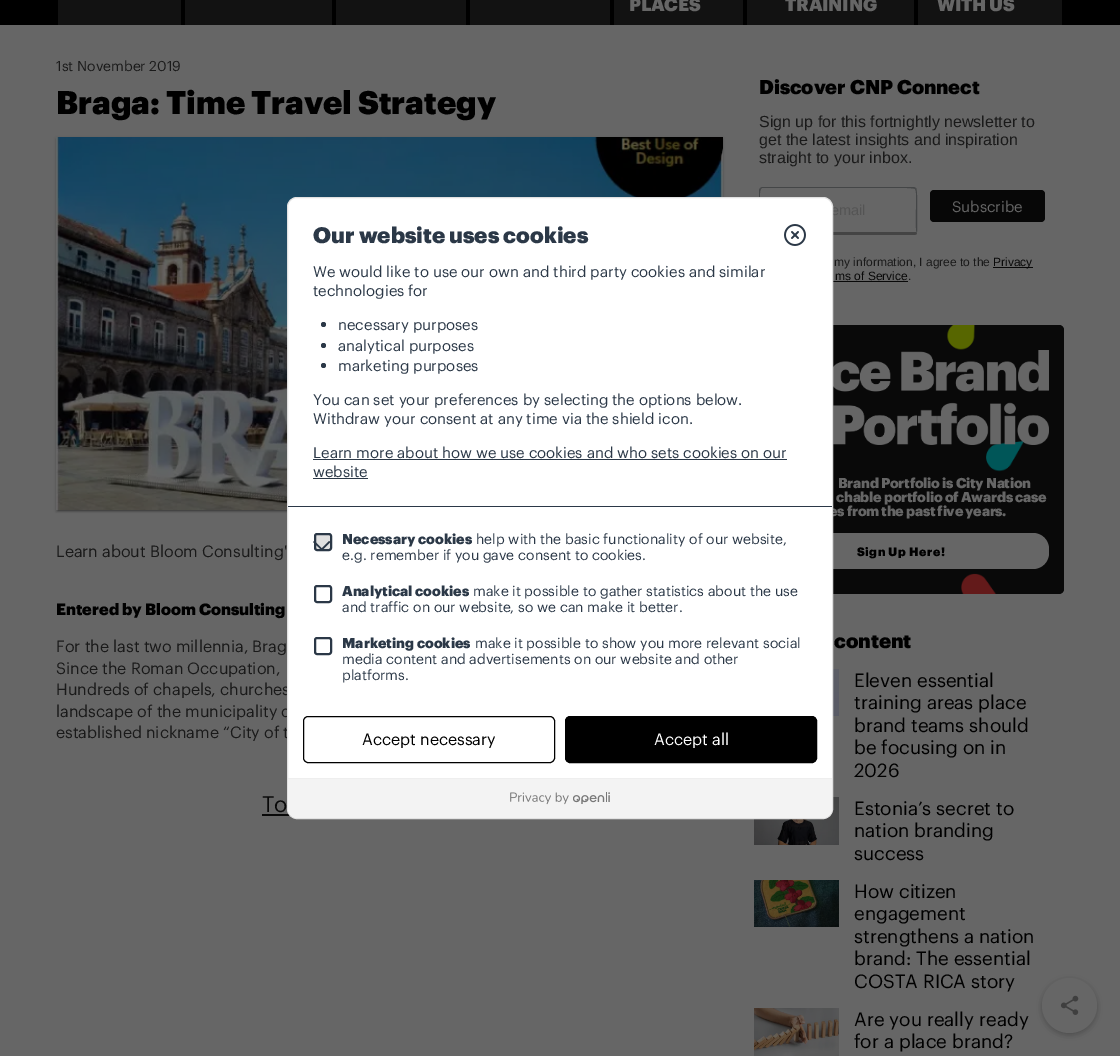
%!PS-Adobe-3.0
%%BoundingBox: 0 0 1120 1056
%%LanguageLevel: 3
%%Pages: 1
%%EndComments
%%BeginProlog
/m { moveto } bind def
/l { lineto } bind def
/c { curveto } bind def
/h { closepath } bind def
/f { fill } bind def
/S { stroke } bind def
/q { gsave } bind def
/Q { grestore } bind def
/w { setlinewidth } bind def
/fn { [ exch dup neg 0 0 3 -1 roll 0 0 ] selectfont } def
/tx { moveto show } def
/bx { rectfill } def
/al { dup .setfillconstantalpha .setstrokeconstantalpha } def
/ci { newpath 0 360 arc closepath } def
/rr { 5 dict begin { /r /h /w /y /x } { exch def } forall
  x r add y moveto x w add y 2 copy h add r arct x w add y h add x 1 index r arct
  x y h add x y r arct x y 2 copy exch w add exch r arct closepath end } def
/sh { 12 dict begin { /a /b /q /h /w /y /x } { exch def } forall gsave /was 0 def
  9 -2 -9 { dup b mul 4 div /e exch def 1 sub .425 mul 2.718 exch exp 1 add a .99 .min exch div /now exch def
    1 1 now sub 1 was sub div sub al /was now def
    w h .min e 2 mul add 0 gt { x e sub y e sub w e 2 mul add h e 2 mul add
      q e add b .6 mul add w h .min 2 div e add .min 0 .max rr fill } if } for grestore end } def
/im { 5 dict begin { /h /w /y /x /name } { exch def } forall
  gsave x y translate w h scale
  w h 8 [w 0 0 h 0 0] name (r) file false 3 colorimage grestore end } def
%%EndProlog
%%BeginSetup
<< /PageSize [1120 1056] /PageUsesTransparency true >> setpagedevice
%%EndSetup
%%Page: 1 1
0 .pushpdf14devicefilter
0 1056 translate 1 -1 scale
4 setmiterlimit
0.4 setgray
0 0 1120 1056 bx
0 setgray
0 0 1120 25 bx
0.071 setgray
58 0 123 25 bx
185 0 147 25 bx
336 0 130 25 bx
470 0 140 25 bx
614 0 129 25 bx
/Graphik-Black 18 fn
0.4 setgray
629 11 m -0.25 0 (PLACES) ashow
0.071 setgray
747 0 167 25 bx
0.4 setgray
785 11 m -0.25 0 (TRAINING) ashow
0.071 setgray
918 0 144 25 bx
0.4 setgray
937 11 m -0.25 0 (WITH US) ashow
/Graphik-Regular 14 fn
0.102 setgray
(1st November 2019) 56 71 tx
/Graphik-Black 32 fn
0 setgray
(Braga: Time Travel Strategy) 56 114 tx
56 138 667 373 0 2.5 0.12 sh
58 142 663 369 0 0.5 0.2 sh
56 139 667 373 0 1 0.14 sh
(image0.raw) 56 137 667 373 im
/Graphik-Regular 16 fn
0.102 setgray
(Learn about Bloom Consulting') 56 557 tx
/Graphik-Black 16 fn
0 setgray
(Entered by Bloom Consulting) 56 615 tx
/Graphik-Regular 16 fn
0.102 setgray
(For the last two millennia, Brag) 56 652 tx
(Since the Roman Occupation,) 56 674 tx
(Hundreds of chapels, churches) 56 695 tx
(landscape of the municipality o) 56 717 tx
(established nickname “City of t) 56 738 tx
/Graphik-Regular 22 fn
0.035 setgray
(To) 262 812 tx
262 814 28 2 bx
/Graphik-Black 19.6 fn
0 setgray
(Discover CNP Connect) 759 94 tx
/LiberationSans-Regular 16 fn
0.102 setgray
(Sign up for this fortnightly newsletter to) 759 127 tx
(get the latest insights and inspiration) 759 145 tx
(straight to your inbox.) 759 163 tx
0.267 0.275 0.278 setrgbcolor
762 187 m 760 188 l 761 189 l 762 188 l 863 188 l 867 188 914 187 915 189 c 916 188 l 914 187 l h f
917 232 m 917 227 918 190 916 188 c 915 189 l 918 191 914 227 917 234 c h f
0.267 setgray
762 235 m 915 235 l 917 234 l 916 232 l 760 232 l 759 234 l 760 235 761 235 762 235 c h f
0.267 0.275 0.278 setrgbcolor
759 190 m 759 232 l 759 234 l 762 227 758 191 761 189 c 760 188 l h f
/LiberationSans-Regular 14.5 fn
0.329 setgray
(email) 831 215 tx
0.027 setgray
930 190 115 32 4 rr f
/Graphik-Regular 15 fn
0.4 setgray
(Subscribe) 952 212 tx
/LiberationSans-Regular 12 fn
0.102 setgray
(my information, I agree to the) 834 266 tx
0.035 setgray
993 267 40 1 bx
(Privacy) 993 266 tx
(ms of Service) 835 280 tx
833 281 75 1 bx
0.102 setgray
(.) 908 280 tx
(image1.raw) 833 325 231 269 im
(image2.raw) 833 350 216 95 im
/Graphik-Black 14 fn
0.4 setgray
838 488 m -0.25 0 (Brand Portfolio is City Nation) ashow
836 502 m -0.25 0 (chable portfolio of Awards case) ashow
829 516 m -0.25 0 (es from the past five years.) ashow
0 setgray
754 535 295 36 16 5 0.12 sh
754 535 295 36 16 2.5 0.16 sh
0.4 setgray
754 533 295 36 16 rr f
/Graphik-Black 12 fn
0 setgray
857 556 m 0.5 0 (Sign Up Here!) ashow
/Graphik-Black 20 fn
(content) 834 648 tx
(image3.raw) 833 669 6 47 im
/Graphik-Regular 18.75 fn
(Eleven essential) 854 687 tx
(training areas place) 854 709 tx
(brand teams should) 854 732 tx
(be focusing on in) 854 754 tx
(2026) 854 777 tx
(image4.raw) 754 797 85 48 im
(Estonia’s secret to) 854 815 tx
(nation branding) 854 837 tx
(success) 854 860 tx
(image5.raw) 754 880 85 47 im
(How citizen) 854 898 tx
(engagement) 854 920 tx
(strengthens a nation) 854 943 tx
(brand: The essential) 854 965 tx
(COSTA RICA story) 854 988 tx
(image6.raw) 754 1008 85 48 im
(Are you really ready) 854 1026 tx
(for a place brand?) 854 1048 tx
1042 980 55 55 27.5 5 0.12 sh
1042 980 55 55 27.5 2.5 0.16 sh
0.4 setgray
1069.5 1005.5 27.5 ci f
(image7.raw) 1060 995 19 20 im
1 setgray
287.5 197.5 545 621 9.5 rr q f Q
0.882 setgray
S
0.169 0.22 0.278 setrgbcolor
288 506 544 1 bx
/Graphik-Black 22 fn
(Our website uses cookies) 313 243 tx
(image8.raw) 784 224 22 22 im
/Graphik-Regular 15 fn
(We would like to use our own and third party cookies and similar) 313 277 tx
(technologies for) 313 296 tx
323.5 324.5 2.5 ci f
(necessary purposes) 338 330 tx
323.5 345.5 2.5 ci f
(analytical purposes) 338 351 tx
323.5 365.5 2.5 ci f
(marketing purposes) 338 371 tx
(You can set your preferences by selecting the options below.) 313 405 tx
(Withdraw your consent at any time via the shield icon.) 313 424 tx
(Learn more about how we use cookies and who sets cookies on our) 313 458 tx
313 459 474 1 bx
(website) 313 477 tx
313 478 55 1 bx
0.878 setgray
315 534 16 16 2 rr q f Q
0.169 0.22 0.278 setrgbcolor
2 w
S
329 541 m 330.5 542 l 322 550.5 l 320.5 549.5 l h f
314.5 541 m 323 549.5 l 322 550.5 l 313 542 l h f
/Graphik-Black 14 fn
(Necessary cookies) 342 544 tx
/Graphik-Regular 14 fn
(help with the basic functionality of our website,) 476 544 tx
(e.g. remember if you gave consent to cookies.) 342 560 tx
315 586 16 16 2 rr S
/Graphik-Black 14 fn
(Analytical cookies) 342 596 tx
/Graphik-Regular 14 fn
(make it possible to gather statistics about the use) 473 596 tx
(and traffic on our website, so we can make it better.) 342 612 tx
315 638 16 16 2 rr S
/Graphik-Black 14 fn
(Marketing cookies) 342 648 tx
/Graphik-Regular 14 fn
(make it possible to show you more relevant social) 475 648 tx
(media content and advertisements on our website and other) 342 664 tx
(platforms.) 342 680 tx
0 setgray
1 w
303.5 716.5 251 46 4.5 rr S
/Graphik-Regular 16 fn
(Accept necessary) 362 745 tx
565.5 716.5 251 46 4.5 rr q f Q
S
1 setgray
(Accept all) 654 745 tx
0.953 setgray
288 778 m 832 778 l 832 808 l 832 813.5 827.5 818 822 818 c 298 818 l 292.5 818 288 813.5 288 808 c h f
0.933 setgray
288 778 544 1 bx
(image9.raw) 510 792 100 13 im
.poppdf14devicefilter showpage
%%EOF
